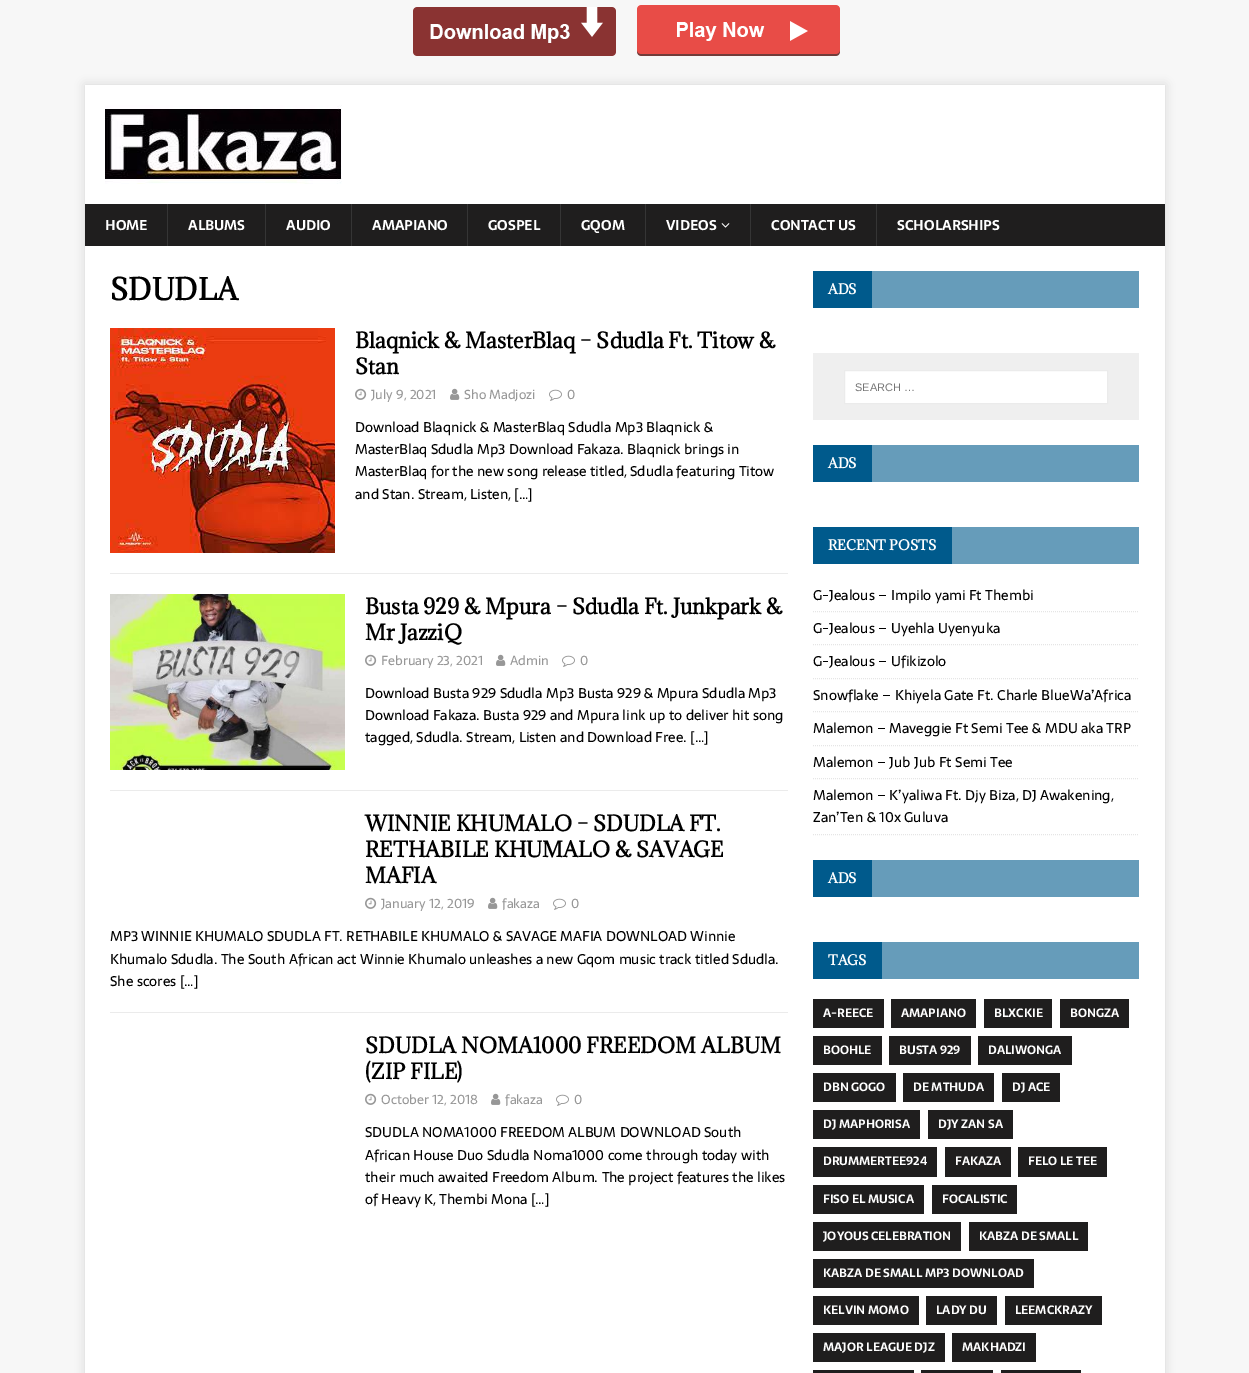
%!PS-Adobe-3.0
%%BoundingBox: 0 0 1249 1373
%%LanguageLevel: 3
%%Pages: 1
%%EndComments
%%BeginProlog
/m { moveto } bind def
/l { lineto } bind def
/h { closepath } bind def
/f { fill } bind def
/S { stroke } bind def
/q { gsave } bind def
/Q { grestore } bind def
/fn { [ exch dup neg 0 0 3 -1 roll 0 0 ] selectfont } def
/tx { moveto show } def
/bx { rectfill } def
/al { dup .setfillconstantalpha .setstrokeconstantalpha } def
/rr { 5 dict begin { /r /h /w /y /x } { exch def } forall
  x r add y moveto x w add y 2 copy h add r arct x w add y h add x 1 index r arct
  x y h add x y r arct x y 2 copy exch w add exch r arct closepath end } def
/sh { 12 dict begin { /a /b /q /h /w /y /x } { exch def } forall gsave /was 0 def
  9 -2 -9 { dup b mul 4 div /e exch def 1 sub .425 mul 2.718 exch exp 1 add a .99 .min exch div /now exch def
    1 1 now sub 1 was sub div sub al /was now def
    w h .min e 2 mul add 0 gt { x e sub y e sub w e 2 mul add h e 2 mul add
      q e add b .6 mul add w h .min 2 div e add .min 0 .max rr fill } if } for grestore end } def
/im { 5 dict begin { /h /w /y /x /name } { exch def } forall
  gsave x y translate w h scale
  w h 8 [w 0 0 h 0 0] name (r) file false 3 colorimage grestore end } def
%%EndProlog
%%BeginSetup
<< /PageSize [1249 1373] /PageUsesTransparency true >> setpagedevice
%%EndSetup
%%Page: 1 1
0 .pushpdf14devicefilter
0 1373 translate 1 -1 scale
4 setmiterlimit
0.969 setgray
0 0 1249 1373 bx
(image0.raw) 413 5 427 51 im
0.196 setgray
85 85 1080 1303 0 5 0.17 sh
1 setgray
85 85 1080 119 bx
(image1.raw) 105 105 237 79 im
0.122 0.118 0.118 setrgbcolor
85 204 1080 42 bx
/Sarala-Bold 14 fn
1 setgray
(HOME) 105 230 tx
0.208 setgray
167 204 1 42 bx
1 setgray
(ALBUMS) 188 230 tx
0.208 setgray
265 204 1 42 bx
1 setgray
(AUDIO) 286 230 tx
0.208 setgray
351 204 1 42 bx
1 setgray
(AMAPIANO) 372 230 tx
0.208 setgray
467 204 1 42 bx
1 setgray
(GOSPEL) 488 230 tx
0.208 setgray
560 204 1 42 bx
1 setgray
(GQOM) 581 230 tx
0.208 setgray
645 204 1 42 bx
1 setgray
(VIDEOS) 666 230 tx
(image2.raw) 721 223 9 5 im
0.208 setgray
750 204 1 42 bx
1 setgray
(CONTACT US) 771 230 tx
0.208 setgray
876 204 1 42 bx
1 setgray
(SCHOLARSHIPS) 897 230 tx
85 246 1080 1127 bx
/Adamina-Bold 28 fn
0 setgray
(SDUDLA) 110 300 tx
0.922 setgray
110 573 678 1 bx
(image3.raw) 110 328 225 225 im
/Adamina-Bold 20 fn
0 setgray
(Blaqnick & MasterBlaq – Sdudla Ft. Titow &) 355 348 tx
(Stan) 355 374 tx
(image4.raw) 355 388 12 12 im
/Sarala-Regular 13 fn
0.592 setgray
(July 9, 2021) 371 399 tx
(image5.raw) 450 388 10 12 im
(Sho Madjozi) 464 399 tx
(image6.raw) 549 389 13 12 im
(0) 567 399 tx
/Sarala-Regular 14 fn
0 setgray
(Download Blaqnick & MasterBlaq Sdudla Mp3 Blaqnick &) 355 432 tx
(MasterBlaq Sdudla Mp3 Download Fakaza. Blaqnick brings in) 355 454 tx
(MasterBlaq for the new song release titled, Sdudla featuring Titow) 355 476 tx
(and Stan. Stream, Listen, […]) 355 499 tx
0.922 setgray
110 790 678 1 bx
(image7.raw) 110 594 235 176 im
/Adamina-Bold 20 fn
0 setgray
(Busta 929 & Mpura – Sdudla Ft. Junkpark &) 365 614 tx
(Mr JazziQ) 365 640 tx
(image4.raw) 365 654 12 12 im
/Sarala-Regular 13 fn
0.592 setgray
(February 23, 2021) 381 665 tx
(image5.raw) 496 654 10 12 im
(Admin) 510 665 tx
(image6.raw) 562 655 13 12 im
(0) 580 665 tx
/Sarala-Regular 14 fn
0 setgray
(Download Busta 929 Sdudla Mp3 Busta 929 & Mpura Sdudla Mp3) 365 698 tx
(Download Fakaza. Busta 929 and Mpura link up to deliver hit song) 365 720 tx
(tagged, Sdudla. Stream, Listen and Download Free. […]) 365 742 tx
0.922 setgray
110 1012 678 1 bx
/Adamina-Bold 20 fn
0 setgray
(WINNIE KHUMALO – SDUDLA FT.) 365 831 tx
(RETHABILE KHUMALO & SAVAGE) 365 857 tx
(MAFIA) 365 883 tx
(image4.raw) 365 897 12 12 im
/Sarala-Regular 13 fn
0.592 setgray
(January 12, 2019) 381 908 tx
(image5.raw) 488 897 10 12 im
(fakaza) 502 908 tx
(image6.raw) 553 898 13 12 im
(0) 571 908 tx
/Sarala-Regular 14 fn
0 setgray
(MP3 WINNIE KHUMALO SDUDLA FT. RETHABILE KHUMALO & SAVAGE MAFIA DOWNLOAD Winnie) 110 941 tx
(Khumalo Sdudla. The South African act Winnie Khumalo unleashes a new Gqom music track titled Sdudla.) 110 964 tx
(She scores […]) 110 986 tx
/Adamina-Bold 20 fn
(SDUDLA NOMA1000 FREEDOM ALBUM) 365 1053 tx
(\(ZIP FILE\)) 365 1079 tx
(image4.raw) 365 1093 12 12 im
/Sarala-Regular 13 fn
0.592 setgray
(October 12, 2018) 381 1104 tx
(image5.raw) 491 1093 10 12 im
(fakaza) 505 1104 tx
(image6.raw) 556 1094 13 12 im
(0) 574 1104 tx
/Sarala-Regular 14 fn
0 setgray
(SDUDLA NOMA1000 FREEDOM ALBUM DOWNLOAD South) 365 1137 tx
(African House Duo Sdudla Noma1000 come through today with) 365 1160 tx
(their much awaited Freedom Album. The project features the likes) 365 1182 tx
(of Heavy K, Thembi Mona […]) 365 1204 tx
0.4 0.612 0.729 setrgbcolor
872 271 267 37 bx
0 0.353 0.549 setrgbcolor
813 271 59 37 bx
/Adamina-Bold 13 fn
1 setgray
(ADS) 828 294 tx
0.937 setgray
813 353 326 67 bx
1 setgray
844.5 370.5 m 1107.5 370.5 l 1107.5 403.5 l 844.5 403.5 l h q f Q
0.922 setgray
S
/LiberationSans-Regular 11 fn
0.459 setgray
(SEARCH …) 855 391 tx
0.4 0.612 0.729 setrgbcolor
872 445 267 37 bx
0 0.353 0.549 setrgbcolor
813 445 59 37 bx
/Adamina-Bold 13 fn
1 setgray
(ADS) 828 468 tx
0.4 0.612 0.729 setrgbcolor
952 527 187 37 bx
0 0.353 0.549 setrgbcolor
813 527 139 37 bx
1 setgray
(RECENT POSTS) 828 550 tx
0.898 setgray
[1 1] 0 setdash
813 611.5 m 1139 611.5 l S
/Sarala-Regular 14 fn
0 setgray
(G-Jealous – Impilo yami Ft Thembi) 813 600 tx
0.898 setgray
813 644.5 m 1139 644.5 l S
0 setgray
(G-Jealous – Uyehla Uyenyuka) 813 633 tx
0.898 setgray
813 678.5 m 1139 678.5 l S
0 setgray
(G-Jealous – Ufikizolo) 813 666 tx
0.898 setgray
813 711.5 m 1139 711.5 l S
0 setgray
(Snowflake – Khiyela Gate Ft. Charle BlueWa’Africa) 813 700 tx
0.898 setgray
813 745.5 m 1139 745.5 l S
0 setgray
(Malemon – Maveggie Ft Semi Tee & MDU aka TRP) 813 733 tx
0.898 setgray
813 778.5 m 1139 778.5 l S
0 setgray
(Malemon – Jub Jub Ft Semi Tee) 813 767 tx
0.898 setgray
813 834.5 m 1139 834.5 l S
0 setgray
(Malemon – K’yaliwa Ft. Djy Biza, DJ Awakening,) 813 800 tx
(Zan’Ten & 10x Guluva) 813 822 tx
0.4 0.612 0.729 setrgbcolor
872 860 267 37 bx
0 0.353 0.549 setrgbcolor
813 860 59 37 bx
/Adamina-Bold 13 fn
1 setgray
(ADS) 828 883 tx
0.4 0.612 0.729 setrgbcolor
882 942 257 37 bx
0 0.353 0.549 setrgbcolor
813 942 69 37 bx
1 setgray
(TAGS) 828 965 tx
0.122 0.118 0.118 setrgbcolor
813 999 71 29 bx
/Sarala-Bold 12 fn
1 setgray
(A-REECE) 823 1017 tx
0.122 0.118 0.118 setrgbcolor
891 999 85 29 bx
1 setgray
(AMAPIANO) 901 1017 tx
0.122 0.118 0.118 setrgbcolor
984 999 68 29 bx
1 setgray
(BLXCKIE) 994 1017 tx
0.122 0.118 0.118 setrgbcolor
1060 999 69 29 bx
1 setgray
(BONGZA) 1070 1017 tx
0.122 0.118 0.118 setrgbcolor
813 1036 69 29 bx
1 setgray
(BOOHLE) 823 1054 tx
0.122 0.118 0.118 setrgbcolor
889 1036 82 29 bx
1 setgray
(BUSTA 929) 899 1054 tx
0.122 0.118 0.118 setrgbcolor
978 1036 94 29 bx
1 setgray
(DALIWONGA) 988 1054 tx
0.122 0.118 0.118 setrgbcolor
813 1073 83 29 bx
1 setgray
(DBN GOGO) 823 1091 tx
0.122 0.118 0.118 setrgbcolor
903 1073 91 29 bx
1 setgray
(DE MTHUDA) 913 1091 tx
0.122 0.118 0.118 setrgbcolor
1002 1073 58 29 bx
1 setgray
(DJ ACE) 1012 1091 tx
0.122 0.118 0.118 setrgbcolor
813 1110 107 29 bx
1 setgray
(DJ MAPHORISA) 823 1128 tx
0.122 0.118 0.118 setrgbcolor
928 1110 85 29 bx
1 setgray
(DJY ZAN SA) 938 1128 tx
0.122 0.118 0.118 setrgbcolor
813 1147 124 30 bx
1 setgray
(DRUMMERTEE924) 823 1165 tx
0.122 0.118 0.118 setrgbcolor
945 1147 66 30 bx
1 setgray
(FAKAZA) 955 1165 tx
0.122 0.118 0.118 setrgbcolor
1018 1147 89 30 bx
1 setgray
(FELO LE TEE) 1028 1165 tx
0.122 0.118 0.118 setrgbcolor
813 1185 111 29 bx
1 setgray
(FISO EL MUSICA) 823 1203 tx
0.122 0.118 0.118 setrgbcolor
932 1185 85 29 bx
1 setgray
(FOCALISTIC) 942 1203 tx
0.122 0.118 0.118 setrgbcolor
813 1222 148 29 bx
1 setgray
(JOYOUS CELEBRATION) 823 1240 tx
0.122 0.118 0.118 setrgbcolor
969 1222 119 29 bx
1 setgray
(KABZA DE SMALL) 979 1240 tx
0.122 0.118 0.118 setrgbcolor
813 1259 221 29 bx
1 setgray
(KABZA DE SMALL MP3 DOWNLOAD) 823 1277 tx
0.122 0.118 0.118 setrgbcolor
813 1296 106 29 bx
1 setgray
(KELVIN MOMO) 823 1314 tx
0.122 0.118 0.118 setrgbcolor
926 1296 71 29 bx
1 setgray
(LADY DU) 936 1314 tx
0.122 0.118 0.118 setrgbcolor
1005 1296 97 29 bx
1 setgray
(LEEMCKRAZY) 1015 1314 tx
0.122 0.118 0.118 setrgbcolor
813 1333 132 29 bx
1 setgray
(MAJOR LEAGUE DJZ) 823 1351 tx
0.122 0.118 0.118 setrgbcolor
952 1333 84 29 bx
1 setgray
(MAKHADZI) 962 1351 tx
0.122 0.118 0.118 setrgbcolor
813 1370 101 3 bx
921 1370 72 3 bx
1001 1370 80 3 bx
.poppdf14devicefilter showpage
%%EOF
